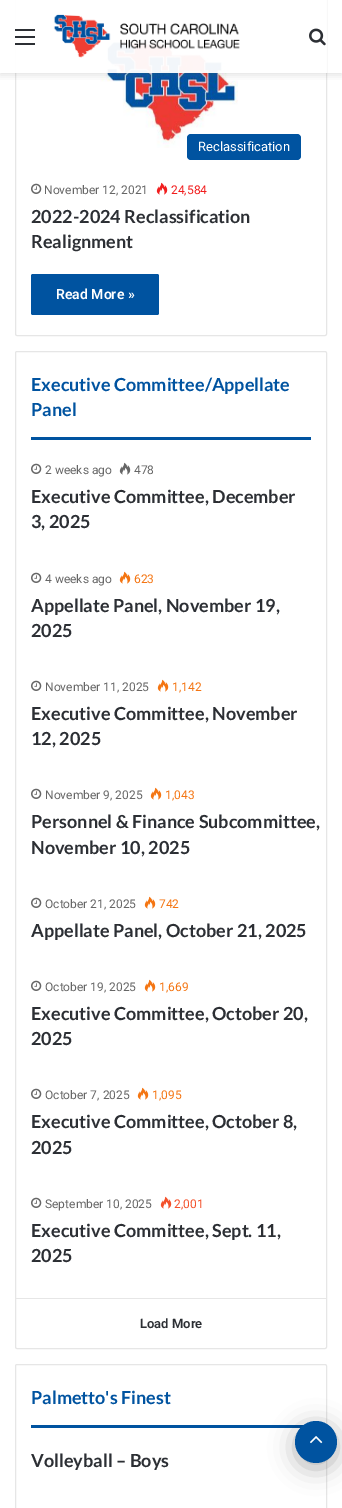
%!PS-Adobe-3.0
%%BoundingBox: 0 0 342 1508
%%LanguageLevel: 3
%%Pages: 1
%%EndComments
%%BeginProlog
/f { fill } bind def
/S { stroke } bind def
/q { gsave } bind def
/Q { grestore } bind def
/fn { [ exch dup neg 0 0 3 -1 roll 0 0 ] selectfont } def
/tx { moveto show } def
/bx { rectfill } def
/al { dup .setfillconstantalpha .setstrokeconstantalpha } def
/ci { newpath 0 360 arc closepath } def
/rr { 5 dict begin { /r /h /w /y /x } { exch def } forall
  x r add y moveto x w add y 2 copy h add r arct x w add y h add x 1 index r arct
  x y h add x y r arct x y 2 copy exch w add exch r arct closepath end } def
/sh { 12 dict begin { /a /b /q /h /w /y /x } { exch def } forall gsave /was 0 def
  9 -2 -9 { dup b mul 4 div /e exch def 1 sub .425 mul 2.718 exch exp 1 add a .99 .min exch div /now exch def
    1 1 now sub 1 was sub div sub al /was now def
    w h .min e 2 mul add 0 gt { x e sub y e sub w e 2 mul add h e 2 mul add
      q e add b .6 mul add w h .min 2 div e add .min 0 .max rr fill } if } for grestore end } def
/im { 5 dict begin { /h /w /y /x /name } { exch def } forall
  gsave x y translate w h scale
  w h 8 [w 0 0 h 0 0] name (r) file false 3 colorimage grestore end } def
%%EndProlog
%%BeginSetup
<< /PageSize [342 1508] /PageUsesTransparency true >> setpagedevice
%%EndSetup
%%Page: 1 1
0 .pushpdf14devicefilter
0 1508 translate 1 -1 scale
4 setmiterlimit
1 setgray
0 0 342 1508 bx
0.902 setgray
15.5 -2.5 311 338 1.5 rr S
(image2.raw) 100 35 138 113 im
q
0 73 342 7 rectclip
0.388 setgray
0 2 342 73 0 4 0.2 sh
Q
0.95 al
1 setgray
15 0 312 73 bx
1 al
0.173 0.184 0.204 setrgbcolor
15 36 20 2 bx
15 29 20 2 bx
15 43 20 2 bx
(image0.raw) 53 14 187 44 im
(image1.raw) 309 28 17 18 im
0 0.325 0.627 setrgbcolor
187 134 114 26 4 rr f
/Roboto-Regular 13 fn
1 setgray
(Reclassification) 198 151 tx
(image3.raw) 31 183 11 11 im
/Roboto-Regular 12 fn
0.4 setgray
(November 12, 2021) 44 194 tx
(image4.raw) 156 182 12 13 im
0.945 0.118 0.118 setrgbcolor
(24,584) 171 194 tx
/Lato-Bold 18 fn
0.173 0.184 0.204 setrgbcolor
(2022-2024 Reclassification) 31 223 tx
(Realignment) 31 248 tx
0 0.325 0.627 setrgbcolor
31 274 128 41 2 rr f
/Roboto-SemiBold 14 fn
1 setgray
(Read More ») 56 299 tx
0.902 setgray
15.5 351.5 311 997 1.5 rr S
0 0.325 0.627 setrgbcolor
31 437 280 3 bx
/Lato-Bold 18 fn
(Executive Committee/Appellate) 31 391 tx
(Panel) 31 416 tx
(image3.raw) 31 463 11 11 im
/Roboto-Regular 12 fn
0.4 setgray
(2 weeks ago) 45 474 tx
(image5.raw) 119 462 12 13 im
(478) 134 474 tx
/Lato-Bold 18 fn
0.173 0.184 0.204 setrgbcolor
(Executive Committee, December) 31 503 tx
(3, 2025) 31 528 tx
(image3.raw) 31 572 11 11 im
/Roboto-Regular 12 fn
0.4 setgray
(4 weeks ago) 45 583 tx
(image6.raw) 119 571 12 13 im
0.957 0.459 0.071 setrgbcolor
(623) 134 583 tx
/Lato-Bold 18 fn
0.173 0.184 0.204 setrgbcolor
(Appellate Panel, November 19,) 31 612 tx
(2025) 31 637 tx
(image3.raw) 31 680 11 11 im
/Roboto-Regular 12 fn
0.4 setgray
(November 11, 2025) 45 691 tx
(image6.raw) 157 679 12 13 im
0.957 0.459 0.071 setrgbcolor
(1,142) 172 691 tx
/Lato-Bold 18 fn
0.173 0.184 0.204 setrgbcolor
(Executive Committee, November) 31 720 tx
(12, 2025) 31 745 tx
(image3.raw) 31 788 11 11 im
/Roboto-Regular 12 fn
0.4 setgray
(November 9, 2025) 45 799 tx
(image6.raw) 150 787 12 13 im
0.957 0.459 0.071 setrgbcolor
(1,043) 165 799 tx
/Lato-Bold 18 fn
0.173 0.184 0.204 setrgbcolor
(Personnel & Finance Subcommittee,) 31 828 tx
(November 10, 2025) 31 854 tx
(image3.raw) 31 897 11 11 im
/Roboto-Regular 12 fn
0.4 setgray
(October 21, 2025) 45 908 tx
(image6.raw) 144 896 12 13 im
0.957 0.459 0.071 setrgbcolor
(742) 159 908 tx
/Lato-Bold 18 fn
0.173 0.184 0.204 setrgbcolor
(Appellate Panel, October 21, 2025) 31 937 tx
(image3.raw) 31 980 11 11 im
/Roboto-Regular 12 fn
0.4 setgray
(October 19, 2025) 45 991 tx
(image6.raw) 144 979 12 13 im
0.957 0.459 0.071 setrgbcolor
(1,669) 159 991 tx
/Lato-Bold 18 fn
0.173 0.184 0.204 setrgbcolor
(Executive Committee, October 20,) 31 1020 tx
(2025) 31 1045 tx
(image3.raw) 31 1088 11 11 im
/Roboto-Regular 12 fn
0.4 setgray
(October 7, 2025) 45 1099 tx
(image6.raw) 137 1087 12 13 im
0.957 0.459 0.071 setrgbcolor
(1,095) 152 1099 tx
/Lato-Bold 18 fn
0.173 0.184 0.204 setrgbcolor
(Executive Committee, October 8,) 31 1128 tx
(2025) 31 1154 tx
(image3.raw) 31 1197 11 11 im
/Roboto-Regular 12 fn
0.4 setgray
(September 10, 2025) 45 1208 tx
(image7.raw) 160 1196 12 13 im
0.953 0.314 0.165 setrgbcolor
(2,001) 174 1208 tx
/Lato-Bold 18 fn
0.173 0.184 0.204 setrgbcolor
(Executive Committee, Sept. 11,) 31 1237 tx
(2025) 31 1262 tx
0.902 setgray
16 1298 310 1 bx
/Roboto-SemiBold 13 fn
0.173 0.184 0.204 setrgbcolor
(Load More) 140 1328 tx
0.902 setgray
15.5 1364.5 311 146 1.5 rr S
0 0.325 0.627 setrgbcolor
31 1425 280 3 bx
/Lato-Bold 18 fn
(Palmetto's Finest) 31 1404 tx
0.173 0.184 0.204 setrgbcolor
(Volleyball – Boys) 31 1467 tx
0 setgray
295 1426 42 42 21 12.5 0.3 sh
0 0.325 0.627 setrgbcolor
316 1442 21 ci f
(image8.raw) 310 1436 13 8 im
.poppdf14devicefilter showpage
%%EOF
